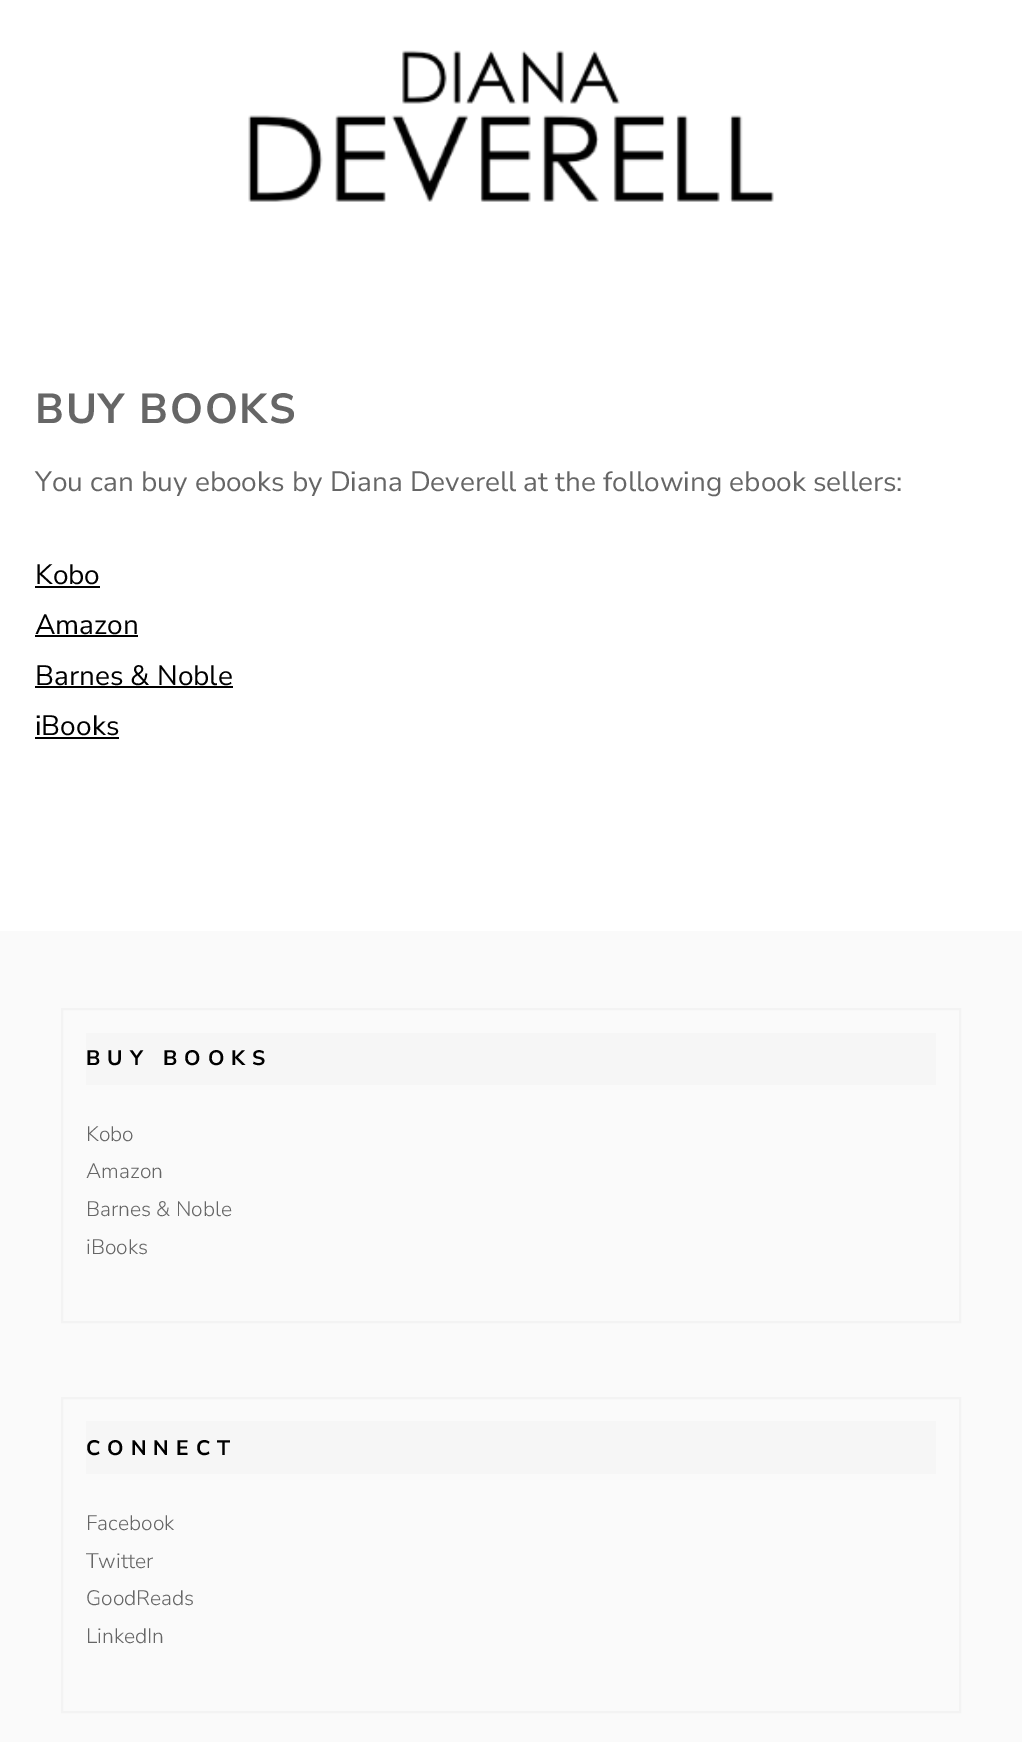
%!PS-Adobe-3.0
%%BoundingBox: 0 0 1022 1742
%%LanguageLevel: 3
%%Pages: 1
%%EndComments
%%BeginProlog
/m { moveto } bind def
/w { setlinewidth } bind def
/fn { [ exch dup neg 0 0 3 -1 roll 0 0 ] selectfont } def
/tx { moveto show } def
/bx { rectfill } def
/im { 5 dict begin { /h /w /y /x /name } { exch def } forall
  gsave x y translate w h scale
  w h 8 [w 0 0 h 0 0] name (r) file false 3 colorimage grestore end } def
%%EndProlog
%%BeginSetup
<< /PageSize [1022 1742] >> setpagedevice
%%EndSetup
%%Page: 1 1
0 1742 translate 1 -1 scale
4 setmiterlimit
1 setgray
0 0 1022 1742 bx
(image0.raw) 248 50 526 152 im
/NunitoSans-Bold 42 fn
0.4 setgray
35 423 m 1.75 0 (BUY BOOKS) ashow
/NunitoSans-Regular 28 fn
(You can buy ebooks by Diana Deverell at the following ebook sellers:) 35 491 tx
0 setgray
(Kobo) 35 584 tx
35 586 65 2 bx
(Amazon) 35 634 tx
35 635 103 2 bx
(Barnes & Noble) 35 685 tx
35 686 198 2 bx
(iBooks) 35 735 tx
35 737 84 2 bx
0.98 setgray
0 931 1022 811 bx
0.953 setgray
2 w
62 1009 898 313 rectstroke
0.965 setgray
86 1033 850 52 bx
/NunitoSans-Bold 21 fn
0 setgray
86 1065 m 7 0 (BUY BOOKS) ashow
/NunitoSans-Light 21 fn
0.4 setgray
(Kobo) 86 1141 tx
(Amazon) 86 1178 tx
(Barnes & Noble) 86 1216 tx
(iBooks) 86 1254 tx
0.953 setgray
62 1398 898 314 rectstroke
0.965 setgray
86 1421 850 53 bx
/NunitoSans-Bold 21 fn
0 setgray
86 1455 m 7 0 (CONNECT) ashow
/NunitoSans-Light 21 fn
0.4 setgray
(Facebook) 86 1530 tx
(Twitter) 86 1568 tx
(GoodReads) 86 1605 tx
(LinkedIn) 86 1643 tx
showpage
%%EOF
